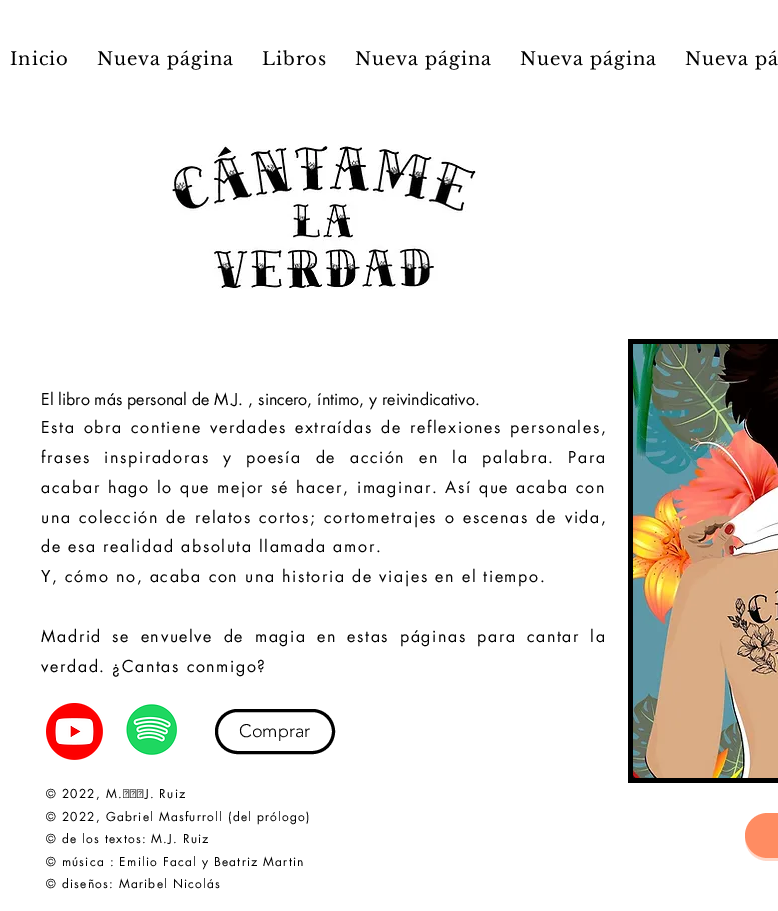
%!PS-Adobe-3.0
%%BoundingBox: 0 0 778 911
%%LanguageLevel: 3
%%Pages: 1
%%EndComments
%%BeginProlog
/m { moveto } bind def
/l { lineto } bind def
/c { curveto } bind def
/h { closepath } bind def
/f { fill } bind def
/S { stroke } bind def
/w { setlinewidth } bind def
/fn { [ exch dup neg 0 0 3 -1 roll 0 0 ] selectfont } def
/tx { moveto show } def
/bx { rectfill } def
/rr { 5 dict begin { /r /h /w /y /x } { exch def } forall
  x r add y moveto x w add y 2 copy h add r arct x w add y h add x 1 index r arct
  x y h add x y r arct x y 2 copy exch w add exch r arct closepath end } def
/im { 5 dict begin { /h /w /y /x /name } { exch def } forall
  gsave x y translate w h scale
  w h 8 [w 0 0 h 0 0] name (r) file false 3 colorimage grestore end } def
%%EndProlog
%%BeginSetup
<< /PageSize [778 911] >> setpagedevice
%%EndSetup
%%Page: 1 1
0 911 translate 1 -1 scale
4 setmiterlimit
1 setgray
0 0 778 911 bx
/LibreBaskerville-Regular 18 fn
0 setgray
10 65 m 0.9 0 (Inicio) ashow
97 65 m 0.9 0 (Nueva página) ashow
262 65 m 0.9 0 (Libros) ashow
355 65 m 0.9 0 (Nueva página) ashow
520 65 m 0.9 0 (Nueva página) ashow
685 65 m 0.9 0 (Nueva pá) ashow
(image0.raw) 172 145 306 144 im
/futura-Regular 16 fn
(El libro más personal de M.J. , sincero, íntimo, y reivindicativo.) 41 405 tx
41 433 m 1.75 0 32 1.6 0 (Esta obra contiene verdades extraídas de reflexiones personales,) awidthshow
41 463 m 7 0 32 1.6 0 (frases inspiradoras y poesía de acción en la palabra. Para) awidthshow
41 493 m 0.5 0 32 1.6 0 (acabar hago lo que mejor sé hacer, imaginar. Así que acaba con) awidthshow
41 523 m 1 0 32 1.6 0 (una colección de relatos cortos; cortometrajes o escenas de vida,) awidthshow
41 552 m 1.6 0 (de esa realidad absoluta llamada amor.) ashow
41 582 m 1.6 0 (Y, cómo no, acaba con una historia de viajes en el tiempo.) ashow
41 642 m 3.75 0 32 1.6 0 (Madrid se envuelve de magia en estas páginas para cantar la) awidthshow
41 672 m 1.6 0 (verdad. ¿Cantas conmigo?) ashow
/futura-Regular 12 fn
46 798 m 1.2 0 (© 2022, M. J. Ruiz) ashow
46 821 m 1.2 0 (© 2022, Gabriel Masfurroll \(del prólogo\)) ashow
46 843 m 1.2 0 (© de los textos: M.J. Ruiz) ashow
46 866 m 1.2 0 (© música : Emilio Facal y Beatriz Martin) ashow
46 888 m 1.2 0 (© diseños: Maribel Nicolás) ashow
628 339 150 444 bx
(image1.raw) 633 344 145 434 im
(image2.raw) 46 703 57 57 im
(image3.raw) 126 704 52 51 im
3 w
216.5 710.5 117 42 21 rr S
/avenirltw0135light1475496-Light 18 fn
(Comprar) 239 737 tx
1 0.843 0.784 setrgbcolor
745 837 m 745 838 l 745 851 755 861 768 861 c 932 861 l 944 861 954 851 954 838 c 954 837 l 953 849 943 858 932 858 c 768 858 l 756 858 746 849 745 837 c h f
1 0.549 0.384 setrgbcolor
745 813 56 45 22.5 rr f
showpage
%%EOF
